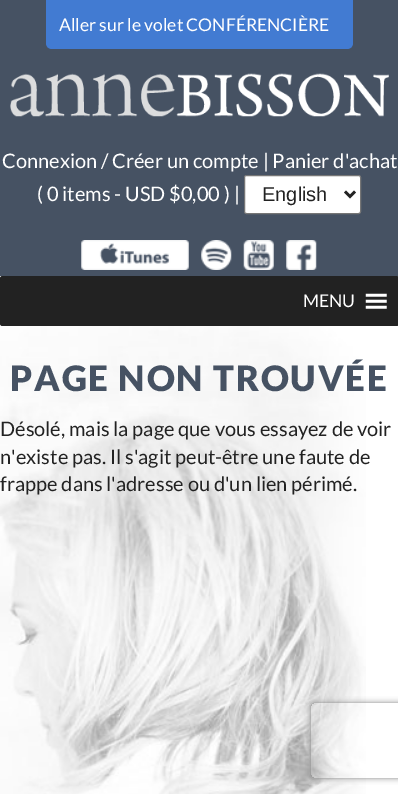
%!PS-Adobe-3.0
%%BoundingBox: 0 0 398 794
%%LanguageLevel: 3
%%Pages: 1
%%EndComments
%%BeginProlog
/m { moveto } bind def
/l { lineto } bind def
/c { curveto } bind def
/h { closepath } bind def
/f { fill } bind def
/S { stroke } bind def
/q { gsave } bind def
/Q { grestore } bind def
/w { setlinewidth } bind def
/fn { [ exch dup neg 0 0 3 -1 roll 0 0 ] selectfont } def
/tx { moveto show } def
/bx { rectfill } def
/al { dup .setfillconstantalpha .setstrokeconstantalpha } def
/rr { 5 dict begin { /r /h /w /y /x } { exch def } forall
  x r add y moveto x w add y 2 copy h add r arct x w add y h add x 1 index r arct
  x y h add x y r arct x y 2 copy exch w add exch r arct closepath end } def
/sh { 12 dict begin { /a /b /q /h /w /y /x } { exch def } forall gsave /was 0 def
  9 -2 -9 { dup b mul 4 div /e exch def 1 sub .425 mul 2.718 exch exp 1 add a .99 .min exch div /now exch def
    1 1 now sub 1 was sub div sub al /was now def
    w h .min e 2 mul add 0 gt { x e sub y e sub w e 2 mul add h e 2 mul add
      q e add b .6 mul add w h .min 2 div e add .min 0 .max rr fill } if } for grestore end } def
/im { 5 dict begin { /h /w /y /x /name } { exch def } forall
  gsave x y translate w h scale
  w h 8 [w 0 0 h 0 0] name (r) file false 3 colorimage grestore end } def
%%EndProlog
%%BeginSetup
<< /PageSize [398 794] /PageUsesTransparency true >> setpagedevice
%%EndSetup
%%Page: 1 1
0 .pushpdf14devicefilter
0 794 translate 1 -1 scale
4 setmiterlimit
1 setgray
0 0 398 794 bx
0.275 0.322 0.388 setrgbcolor
0 0 398 276 bx
0.259 0.482 0.824 setrgbcolor
46 0 m 353 0 l 353 43 l 353 46.5 350.5 49 347 49 c 52 49 l 48.5 49 46 46.5 46 43 c h f
/Lato-Regular 17.5 fn
1 setgray
(Aller sur le volet CONFÉRENCIÈRE) 59 31 tx
(image0.raw) 10 73 379 44 im
/Lato-Regular 20 fn
(Connexion / Créer un compte | Panier d'achat) 2 168 tx
(\( 0 items - USD $0,00 \) |) 37 201 tx
244.5 175.5 116 38 2 rr q f Q
0.463 setgray
S
0.133 setgray
2.5 w
345 191.5 m 350 196.5 l 355 191.5 l S
/LiberationSans-Regular 20 fn
(English) 262 201 tx
(image1.raw) 81 240 108 30 im
(image2.raw) 201 240 31 30 im
(image3.raw) 243 240 31 30 im
(image4.raw) 286 240 31 30 im
(image6.raw) 0 323 366 471 im
0 276 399 50 2.5 rr f
/Lato-Regular 17.5 fn
1 setgray
(MENU) 303 307 tx
(image5.raw) 365 293 22 16 im
/Lato-Black 35 fn
0.275 0.322 0.388 setrgbcolor
10 391 m 1.75 0 (PAGE NON TROUVÉE) ashow
/Lato-Regular 20 fn
0.133 setgray
(Désolé, mais la page que vous essayez de voir) 0 436 tx
(n'existe pas. Il s'agit peut-être une faute de) 0 464 tx
(frappe dans l'adresse ou d'un lien périmé.) 0 491 tx
q
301 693 m 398 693 l 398 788 l 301 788 l h 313.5 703 m 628.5 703 l 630 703 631 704 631 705.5 c 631 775.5 l 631 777 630 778 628.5 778 c 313.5 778 l 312 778 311 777 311 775.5 c 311 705.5 l 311 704 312 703 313.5 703 c h eoclip newpath
0.502 setgray
311 703 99 75 2.5 3 1 sh
Q
.poppdf14devicefilter showpage
%%EOF
